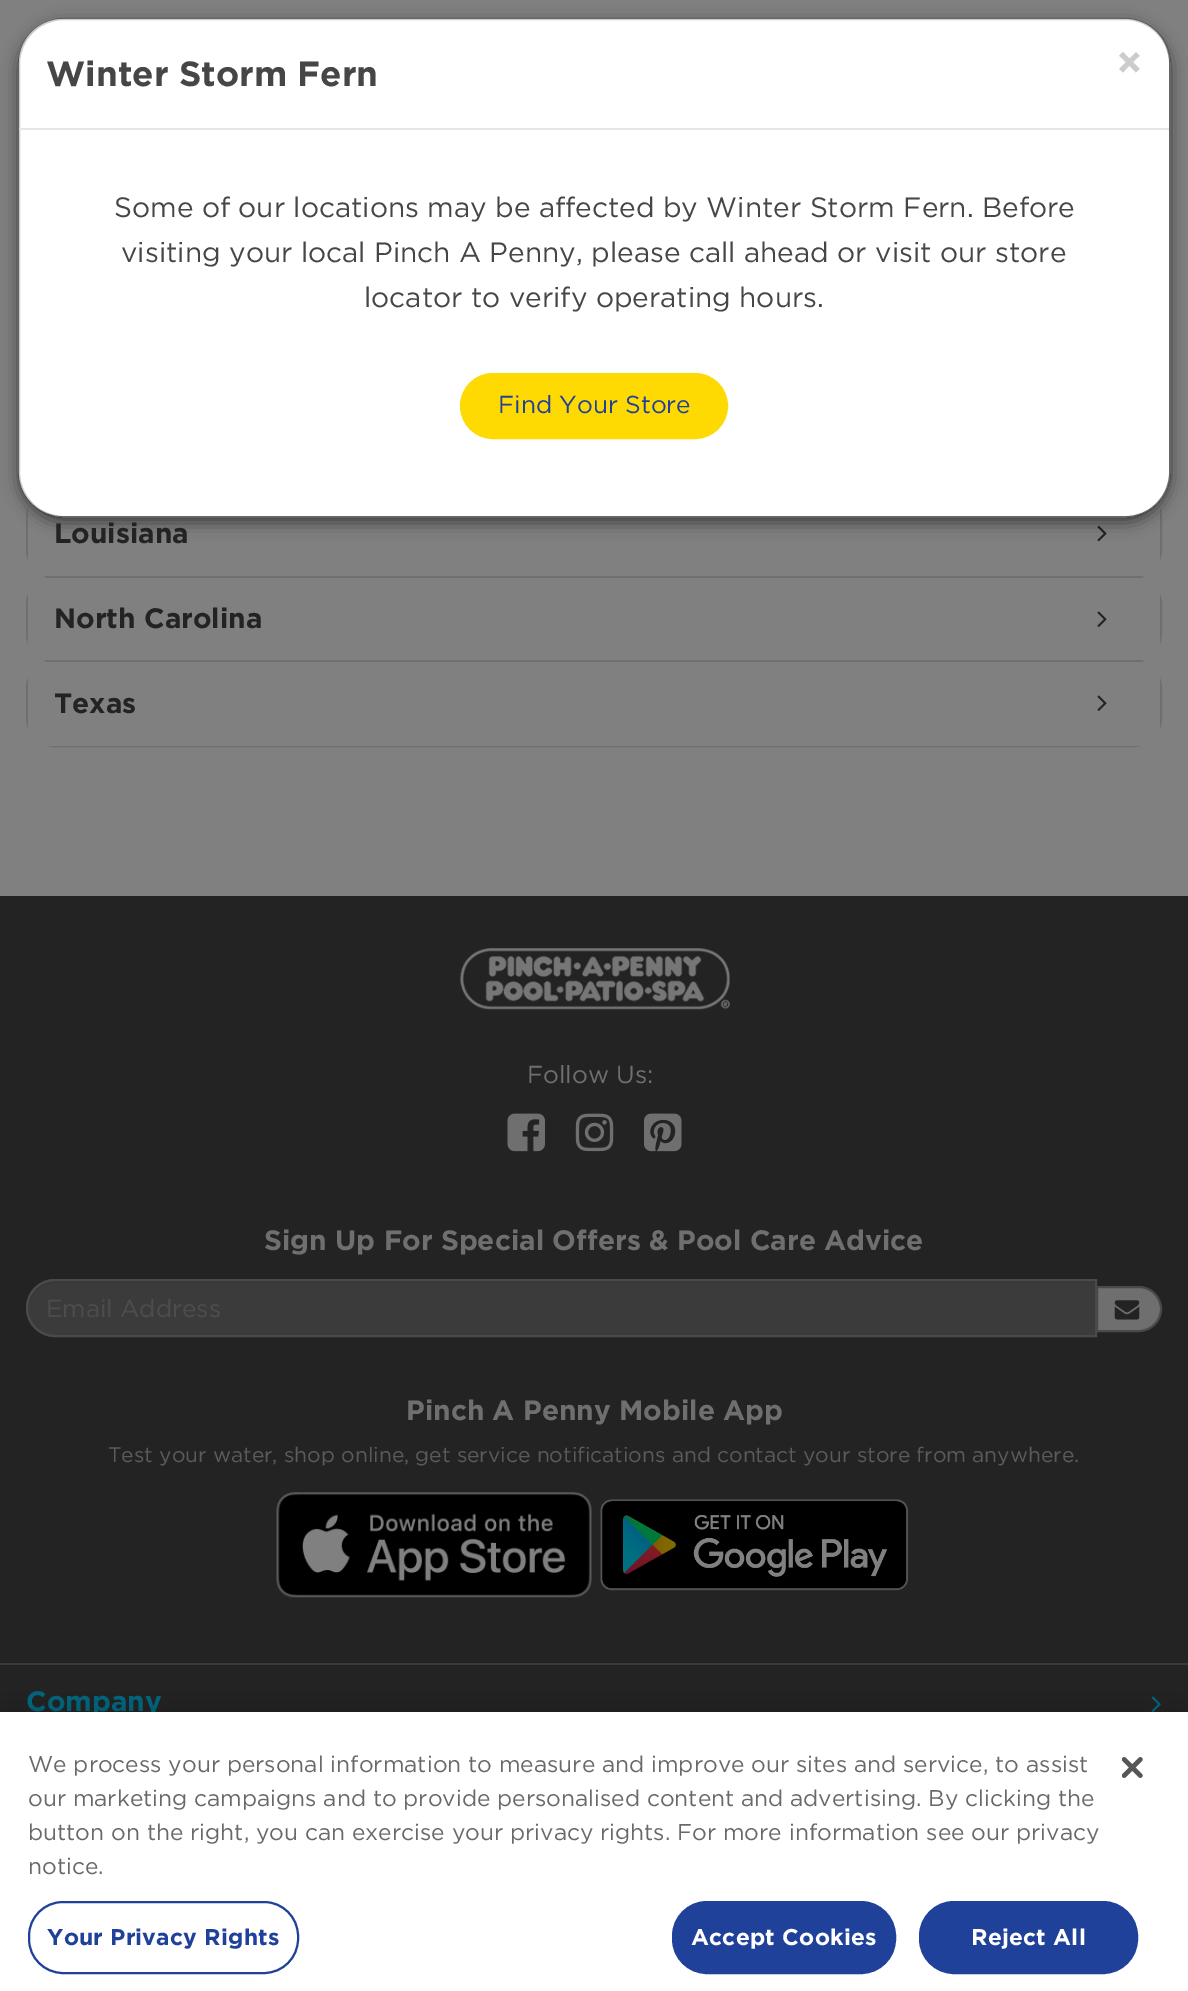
%!PS-Adobe-3.0
%%BoundingBox: 0 0 1188 1991
%%LanguageLevel: 3
%%Pages: 1
%%EndComments
%%BeginProlog
/m { moveto } bind def
/l { lineto } bind def
/c { curveto } bind def
/h { closepath } bind def
/f { fill } bind def
/S { stroke } bind def
/q { gsave } bind def
/Q { grestore } bind def
/w { setlinewidth } bind def
/fn { [ exch dup neg 0 0 3 -1 roll 0 0 ] selectfont } def
/tx { moveto show } def
/bx { rectfill } def
/al { dup .setfillconstantalpha .setstrokeconstantalpha } def
/rr { 5 dict begin { /r /h /w /y /x } { exch def } forall
  x r add y moveto x w add y 2 copy h add r arct x w add y h add x 1 index r arct
  x y h add x y r arct x y 2 copy exch w add exch r arct closepath end } def
/sh { 12 dict begin { /a /b /q /h /w /y /x } { exch def } forall gsave /was 0 def
  9 -2 -9 { dup b mul 4 div /e exch def 1 sub .425 mul 2.718 exch exp 1 add a .99 .min exch div /now exch def
    1 1 now sub 1 was sub div sub al /was now def
    w h .min e 2 mul add 0 gt { x e sub y e sub w e 2 mul add h e 2 mul add
      q e add b .6 mul add w h .min 2 div e add .min 0 .max rr fill } if } for grestore end } def
/im { 5 dict begin { /h /w /y /x /name } { exch def } forall
  gsave x y translate w h scale
  w h 8 [w 0 0 h 0 0] name (r) file false 3 colorimage grestore end } def
%%EndProlog
%%BeginSetup
<< /PageSize [1188 1991] /PageUsesTransparency true >> setpagedevice
%%EndSetup
%%Page: 1 1
0 .pushpdf14devicefilter
0 1991 translate 1 -1 scale
4 setmiterlimit
0.502 setgray
0 0 1188 1991 bx
0.435 setgray
2 w
27 491 1134 86 27 rr S
0.502 setgray
28 498 1132 78 bx
(image0.raw) 1097 525 10 17 im
q
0 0 m 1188 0 l 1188 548 l 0 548 l h 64 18 m 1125 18 l 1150.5 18 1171 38.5 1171 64 c 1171 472 l 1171 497.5 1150.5 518 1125 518 c 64 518 l 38.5 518 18 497.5 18 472 c 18 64 l 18 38.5 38.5 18 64 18 c h eoclip newpath
0 setgray
18 23 1153 500 46 8 0.5 sh
Q
1 setgray
19 19 1150 497 44 rr f
0.2 al
0 setgray
19 19 1151 498 45 rr S
1 al
0.898 setgray
19 128 1150 2 bx
/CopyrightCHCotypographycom-Regular 35 fn
0.275 setgray
(Winter Storm Fern) 46 86 tx
/CopyrightCHCotypographycom-Regular 42 fn
0.8 setgray
(×) 1116 77 tx
/CopyrightCHCotypographycom-Light 28 fn
0.275 setgray
(Some of our locations may be affected by Winter Storm Fern. Before) 114 217 tx
(visiting your local Pinch A Penny, please call ahead or visit our store) 121 262 tx
(locator to verify operating hours.) 364 307 tx
1 0.855 0.008 setrgbcolor
461 374 266 64 32 rr q f Q
S
/CopyrightCHCotypographycom-Light 24.5 fn
0.125 0.255 0.604 setrgbcolor
(Find Your Store) 498 413 tx
/CopyrightCHCotypographycom-Regular 28 fn
0.137 setgray
(Louisiana) 54 543 tx
0.435 setgray
27 577 1134 84 27 rr S
0.502 setgray
28 578 1132 82 bx
0.137 setgray
(North Carolina) 54 628 tx
(image1.raw) 1097 611 10 16 im
0.435 setgray
27 661 1134 85 27 rr S
0.502 setgray
28 662 1132 84 bx
0.137 setgray
(Texas) 54 713 tx
(image1.raw) 1097 695 10 16 im
0 896 1188 816 bx
(image2.raw) 460 948 270 62 im
/CopyrightCHCotypographycom-Light 24.5 fn
0.435 setgray
(Follow Us:) 527 1083 tx
(image3.raw) 507 1113 38 39 im
(image4.raw) 575 1113 39 39 im
(image5.raw) 644 1113 38 39 im
/CopyrightCHCotypographycom-Regular 28 fn
(Sign Up For Special Offers & Pool Care Advice) 264 1250 tx
0.231 setgray
55 1279 m 1097 1279 l 1097 1337 l 55 1337 l 39 1337 26 1324 26 1308 c 26 1292 39 1279 55 1279 c h f
0.216 setgray
55 1283 m 1096 1283 l 1096 1281 l 55 1281 l 40 1281 28 1293 28 1308 c 28 1309 l 29 1294 40 1283 55 1283 c h f
0.29 setgray
55 1280 m 1096 1280 l 1096 1336 l 55 1336 l 39.5 1336 27 1323.5 27 1308 c 27 1292.5 39.5 1280 55 1280 c h S
/CopyrightCHCotypographycom-Light 24.5 fn
0.302 setgray
(Email Address) 46 1317 tx
0.435 setgray
1097 1287 m 1139 1287 l 1151 1287 1161 1297 1161 1309 c 1161 1321 1151 1331 1139 1331 c 1097 1331 l h q f Q
0.29 setgray
S
(image6.raw) 1114 1300 26 20 im
/CopyrightCHCotypographycom-Regular 28 fn
0.435 setgray
(Pinch A Penny Mobile App) 406 1420 tx
/CopyrightCHCotypographycom-Light 21 fn
0.357 setgray
(Test your water, shop online, get service notifications and contact your store from anywhere.) 108 1462 tx
(image7.raw) 276 1492 316 106 im
(image8.raw) 600 1499 309 92 im
0.227 setgray
0 1663 1188 2 bx
/CopyrightCHCotypographycom-Regular 28 fn
0.004 0.408 0.502 setrgbcolor
(Company) 26 1711 tx
(image9.raw) 1151 1696 10 16 im
0 setgray
0 1712 1188 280 0 16 0.2 sh
1 setgray
0 1712 1188 279 bx
/CopyrightCHCotypographycom-Light 22.75 fn
0.412 setgray
(We process your personal information to measure and improve our sites and service, to assist) 28 1772 tx
(our marketing campaigns and to provide personalised content and advertising. By clicking the) 28 1806 tx
(button on the right, you can exercise your privacy rights. For more information see our privacy) 28 1840 tx
(notice.) 28 1874 tx
0.125 0.255 0.604 setrgbcolor
29 1902 269 71 34 rr S
/CopyrightCHCotypographycom-Regular 22.75 fn
47 1945 m 0.25 0 (Your Privacy Rights) ashow
673 1902 222 71 34 rr q f Q
S
1 setgray
691 1945 m 0.25 0 (Accept Cookies) ashow
0.125 0.255 0.604 setrgbcolor
920 1902 217 71 34 rr q f Q
S
1 setgray
971 1945 m 0.25 0 (Reject All) ashow
(image10.raw) 1122 1757 21 21 im
.poppdf14devicefilter showpage
%%EOF
